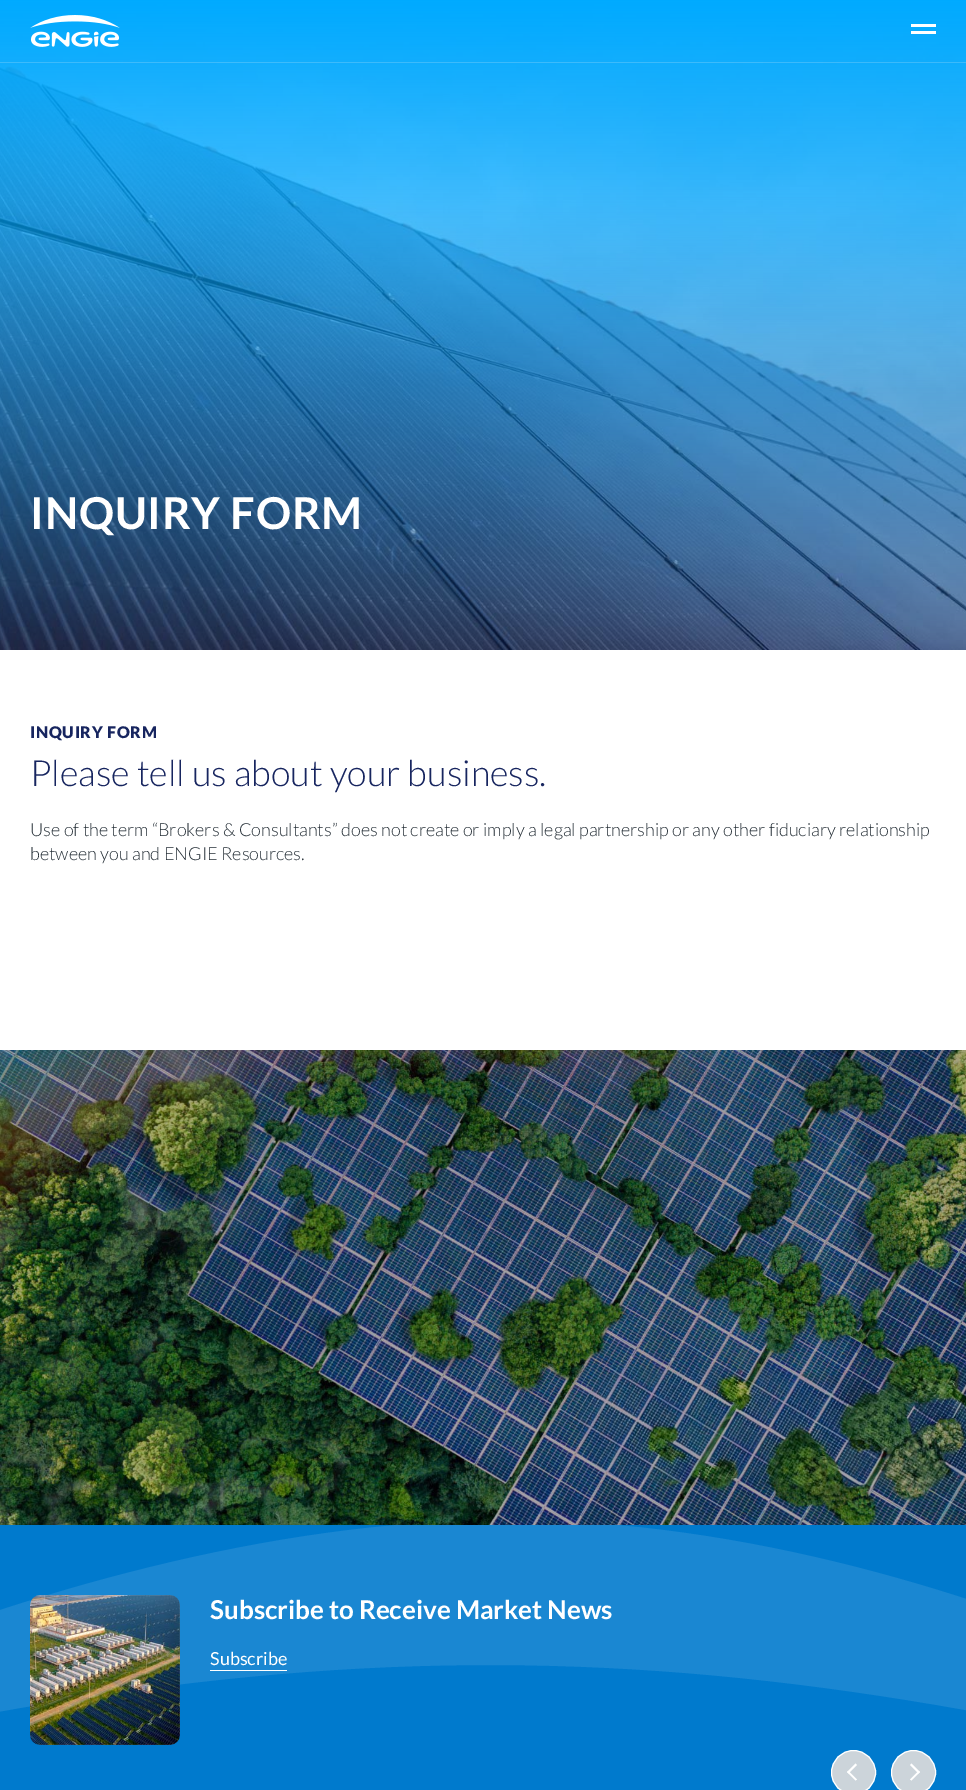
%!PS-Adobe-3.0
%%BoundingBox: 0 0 966 1790
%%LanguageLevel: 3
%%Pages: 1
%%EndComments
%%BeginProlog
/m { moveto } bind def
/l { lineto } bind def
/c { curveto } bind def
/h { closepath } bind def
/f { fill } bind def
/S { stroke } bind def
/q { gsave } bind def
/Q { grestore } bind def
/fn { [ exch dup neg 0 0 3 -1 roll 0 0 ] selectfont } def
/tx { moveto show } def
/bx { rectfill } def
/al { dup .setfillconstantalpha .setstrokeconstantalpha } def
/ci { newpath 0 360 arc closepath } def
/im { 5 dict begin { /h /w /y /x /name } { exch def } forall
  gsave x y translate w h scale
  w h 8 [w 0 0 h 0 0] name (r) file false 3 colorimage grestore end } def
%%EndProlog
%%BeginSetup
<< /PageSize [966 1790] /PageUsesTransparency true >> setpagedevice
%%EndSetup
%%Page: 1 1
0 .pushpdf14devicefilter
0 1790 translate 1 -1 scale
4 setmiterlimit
1 setgray
0 0 966 1790 bx
(image1.raw) 0 0 966 650 im
0.2 al
0.922 0.933 0.945 setrgbcolor
0 62 966 1 bx
1 al
(image0.raw) 30 15 90 32 im
1 setgray
911 24 25 3 bx
911 31 25 3 bx
/Lato-Bold 44 fn
30 529 m 0.75 0 (INQUIRY FORM) ashow
/Lato-Black 16 fn
0.09 0.145 0.373 setrgbcolor
30 738 m 0.75 0 (INQUIRY FORM) ashow
/Lato-Light 36 fn
(Please tell us about your business.) 30 786 tx
/Lato-Light 18 fn
0.137 0.176 0.208 setrgbcolor
(Use of the term “Brokers & Consultants” does not create or imply a legal partnership or any other fiduciary relationship) 30 836 tx
(between you and ENGIE Resources.) 30 860 tx
(image2.raw) 0 1050 966 475 im
0 0.478 0.804 setrgbcolor
0 1525 966 265 bx
q
0 1525 966 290 rectclip
0.102 0.529 0.824 setrgbcolor
507 1520 m 26 1520 -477 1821 -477 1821 c 312 1609 693 1617 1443 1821 c 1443 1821 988 1520 507 1520 c h f
Q
(image3.raw) 30 1595 150 150 im
/Lato-Bold 26 fn
1 setgray
(Subscribe to Receive Market News) 210 1619 tx
/Lato-Regular 18 fn
(Subscribe) 210 1665 tx
210 1670 77 1 bx
0.8 0.831 0.855 setrgbcolor
853.5 1772.5 22 ci q f Q
1 setgray
S
857 1779.5 m 855.5 1780.5 l 847 1772 l 848.5 1771 l h f
857 1765 m 848.5 1773.5 l 847 1772 l 855.5 1763.5 l h f
0.8 0.831 0.855 setrgbcolor
913.5 1772.5 22 ci q f Q
1 setgray
S
910 1765 m 911.5 1763.5 l 920 1772 l 918.5 1773.5 l h f
910 1779.5 m 918.5 1771 l 920 1772 l 911.5 1780.5 l h f
.poppdf14devicefilter showpage
%%EOF
